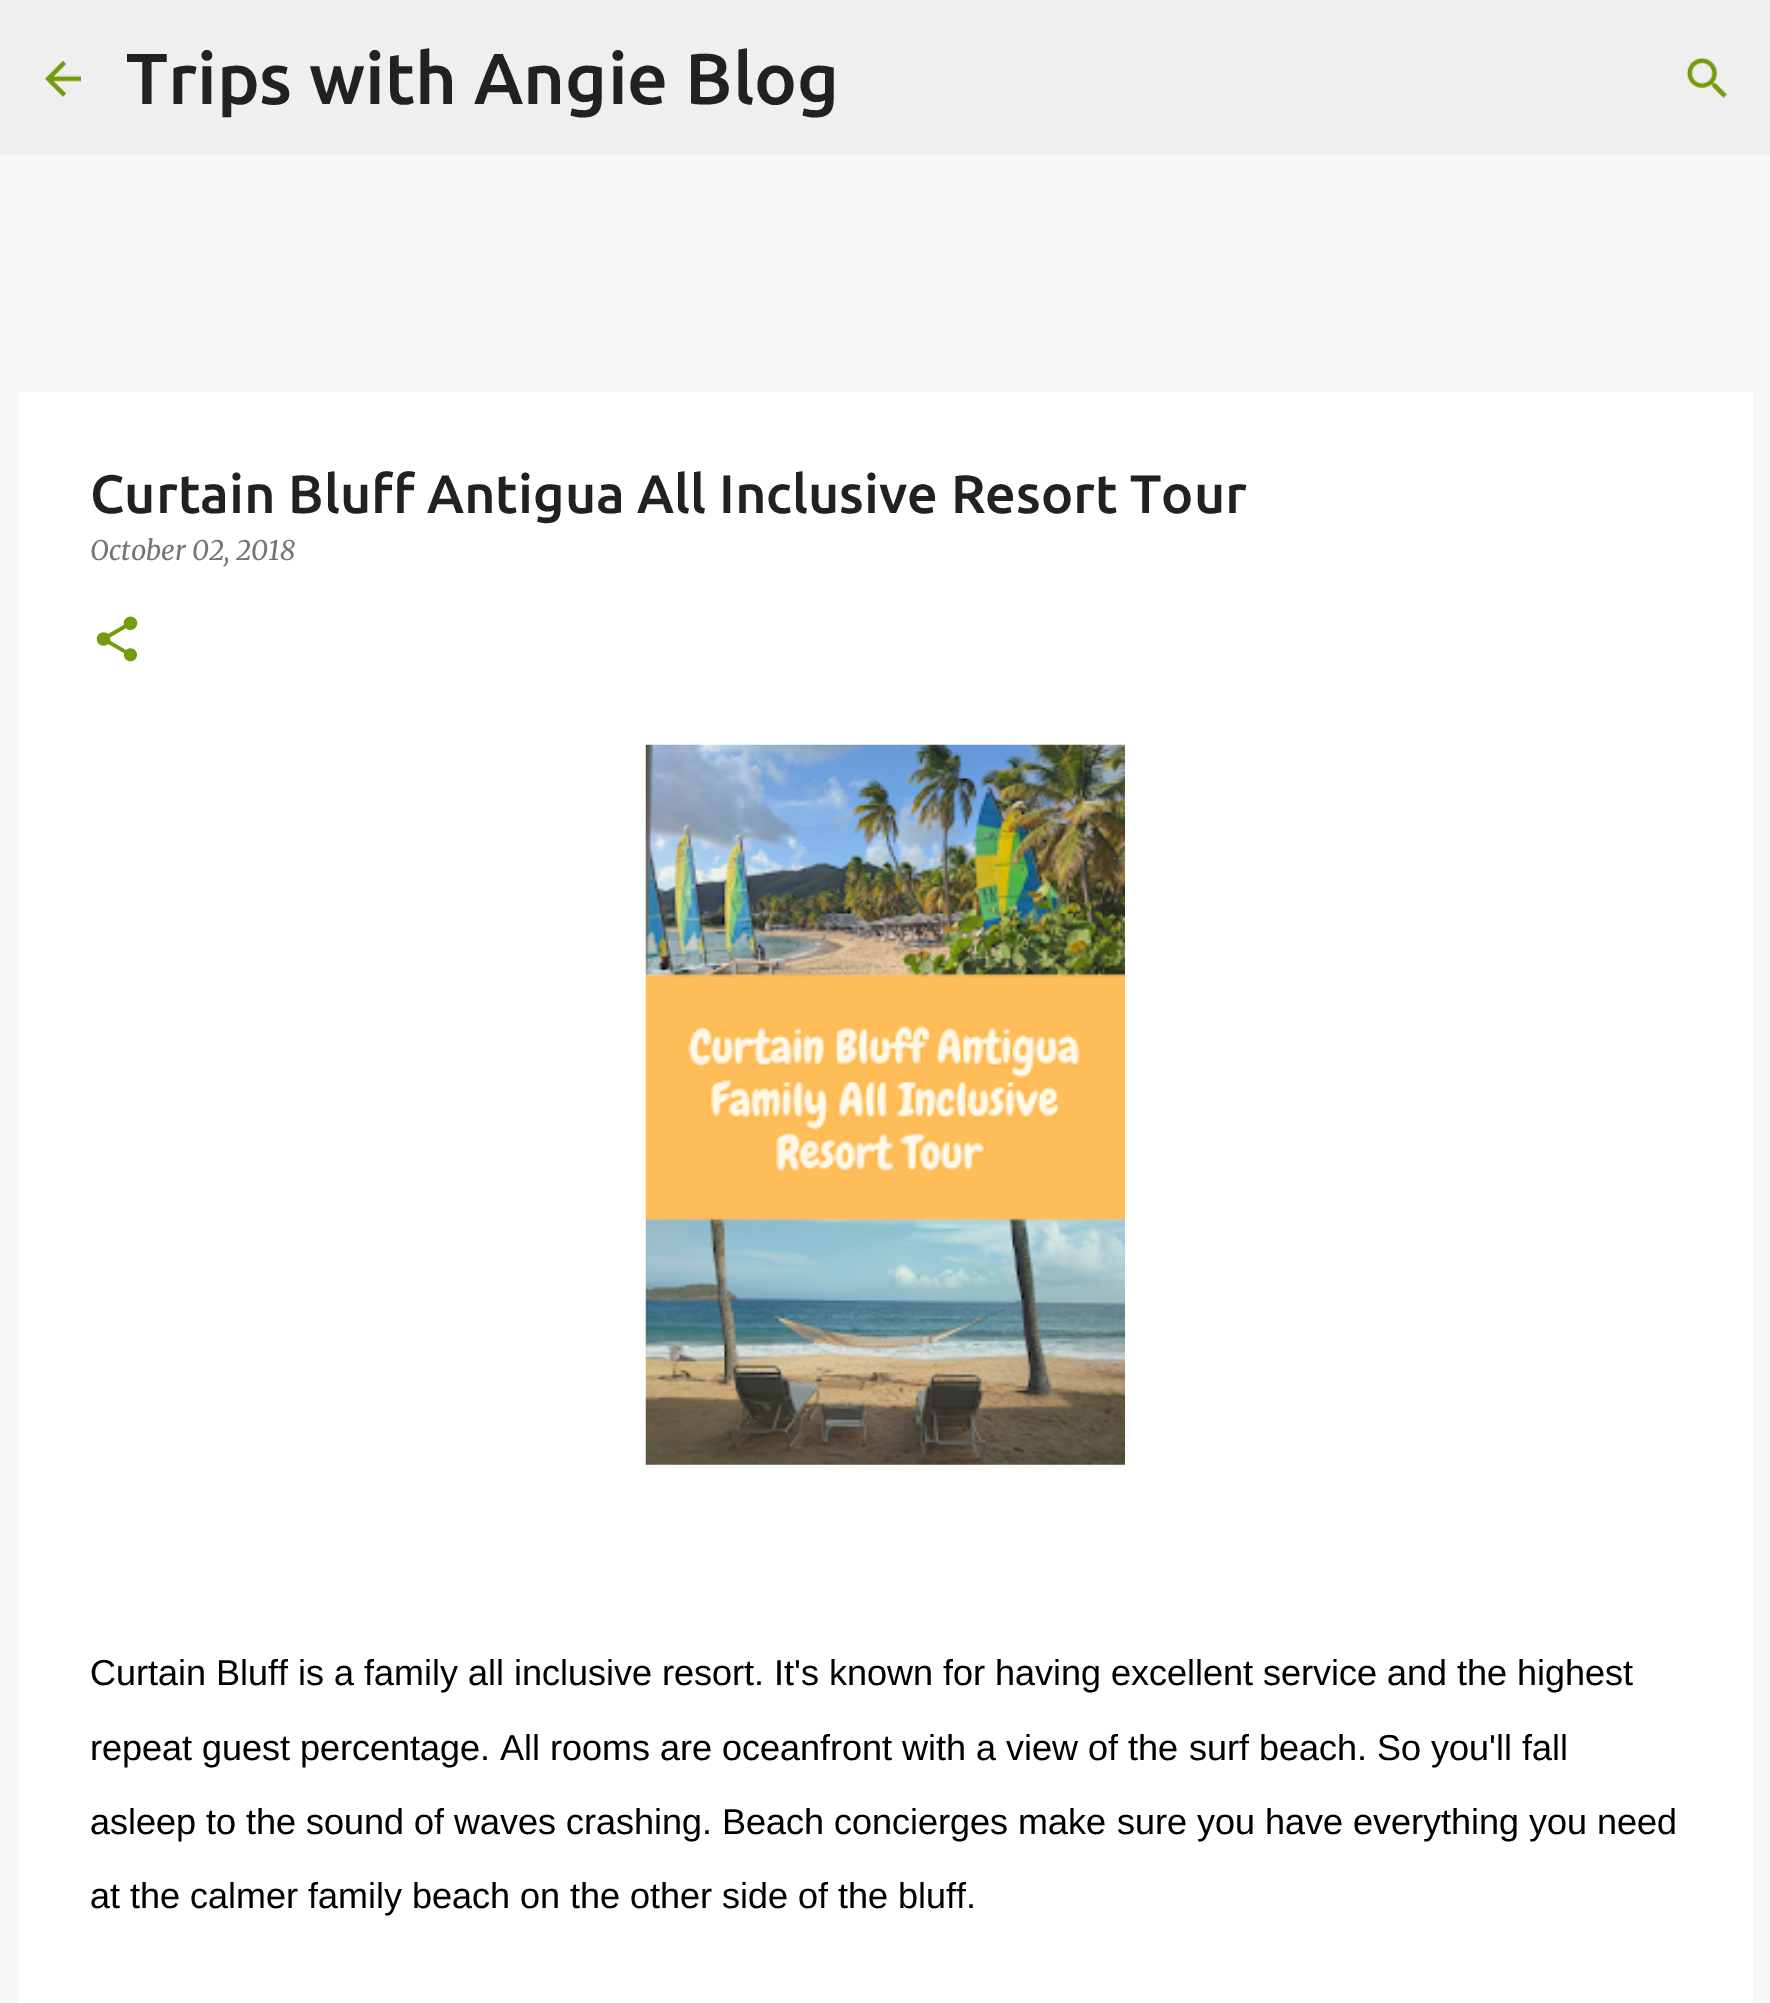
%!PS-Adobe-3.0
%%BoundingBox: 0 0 1770 2003
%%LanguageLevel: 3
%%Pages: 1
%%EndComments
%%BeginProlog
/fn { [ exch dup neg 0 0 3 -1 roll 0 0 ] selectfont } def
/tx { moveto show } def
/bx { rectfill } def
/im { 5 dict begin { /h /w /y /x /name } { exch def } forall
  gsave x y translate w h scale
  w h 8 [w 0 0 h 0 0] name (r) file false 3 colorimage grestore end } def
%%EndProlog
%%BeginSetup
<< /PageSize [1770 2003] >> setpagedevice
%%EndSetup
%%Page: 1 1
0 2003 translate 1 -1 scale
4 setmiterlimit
0.969 setgray
0 0 1770 2003 bx
0.937 setgray
0 0 1770 155 bx
(image0.raw) 45 60 36 37 im
/Ubuntu-Medium 72 fn
0.129 setgray
(Trips with Angie Blog) 126 104 tx
(image1.raw) 1686 57 41 41 im
1 setgray
18 392 1735 1611 bx
/Ubuntu-Medium 54 fn
0.129 setgray
(Curtain Bluff Antigua All Inclusive Resort Tour) 90 513 tx
/Merriweather-Italic 27 fn
0.459 setgray
(October 02, 2018) 90 560 tx
(image2.raw) 96 616 42 46 im
(image3.raw) 645 744 480 721 im
/LiberationSans-Regular 36 fn
0 setgray
(Curtain Bluff is a family all inclusive resort. It's known for having excellent service and the highest) 90 1685 tx
(repeat guest percentage. All rooms are oceanfront with a view of the surf beach. So you'll fall) 90 1760 tx
(asleep to the sound of waves crashing. Beach concierges make sure you have everything you need) 90 1834 tx
(at the calmer family beach on the other side of the bluff.) 90 1908 tx
showpage
%%EOF
